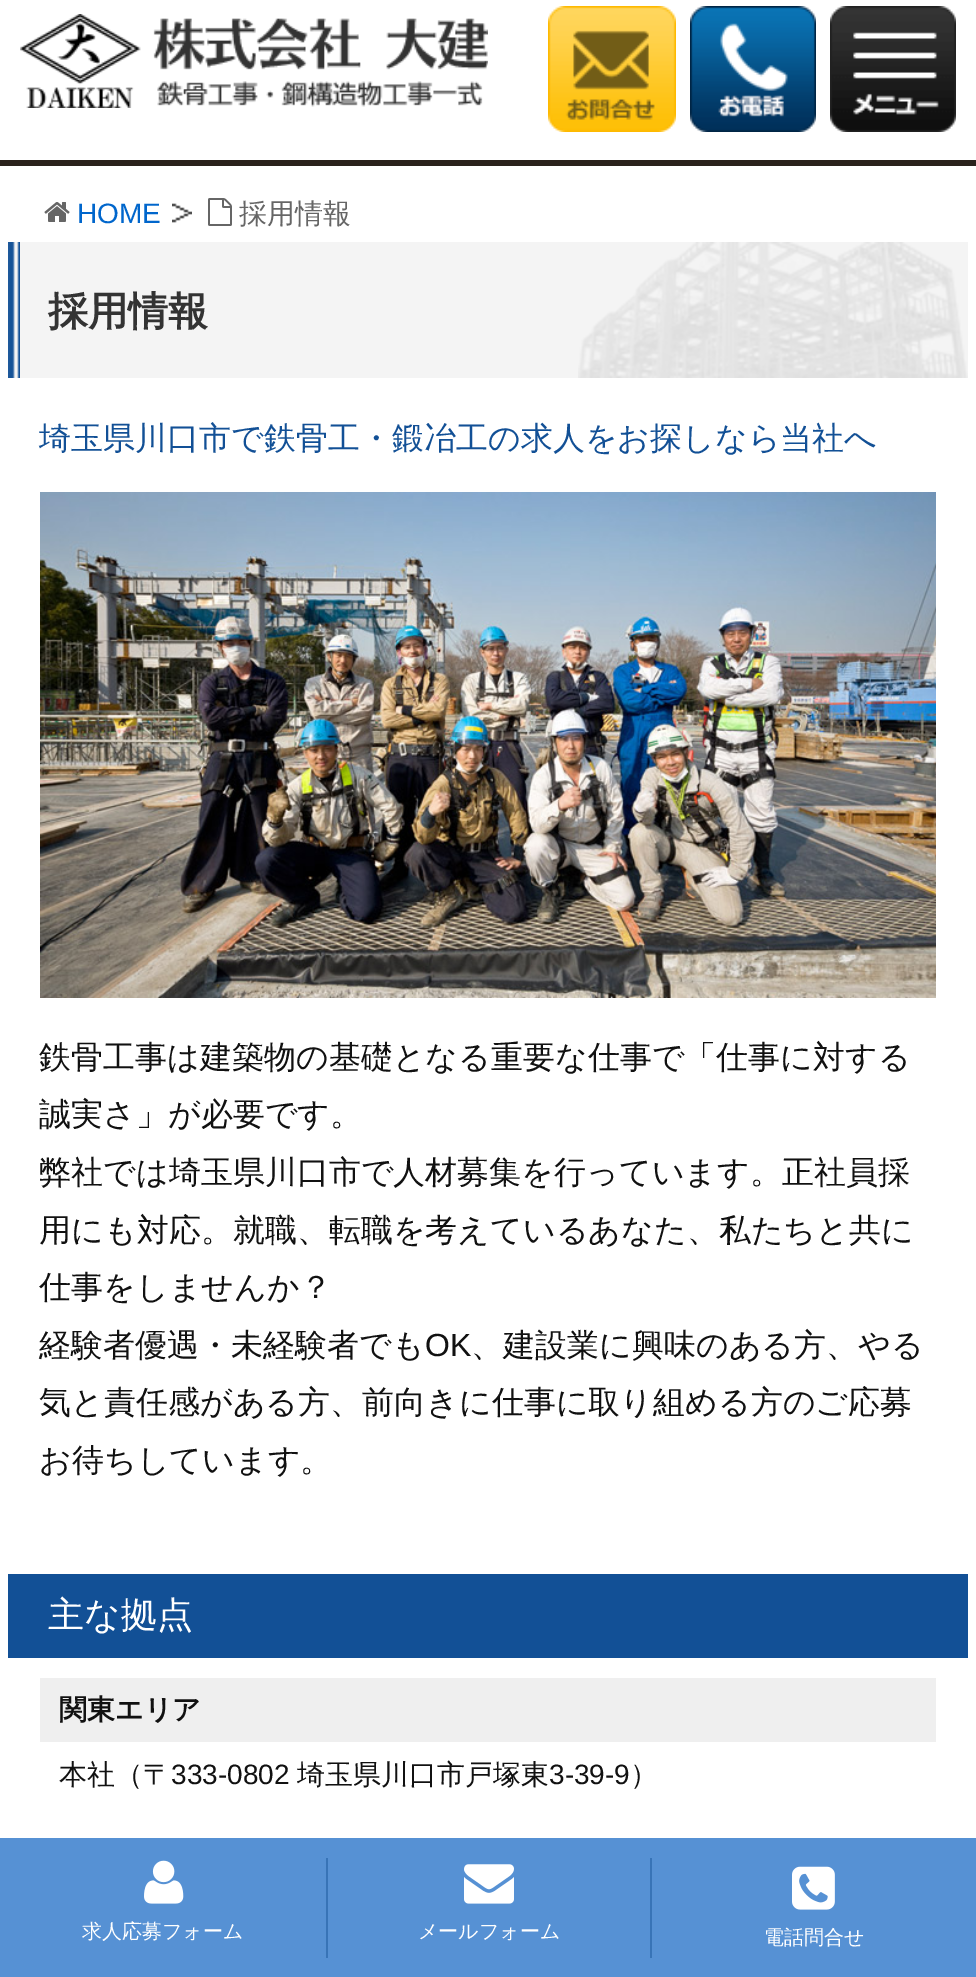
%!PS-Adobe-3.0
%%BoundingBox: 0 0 976 1977
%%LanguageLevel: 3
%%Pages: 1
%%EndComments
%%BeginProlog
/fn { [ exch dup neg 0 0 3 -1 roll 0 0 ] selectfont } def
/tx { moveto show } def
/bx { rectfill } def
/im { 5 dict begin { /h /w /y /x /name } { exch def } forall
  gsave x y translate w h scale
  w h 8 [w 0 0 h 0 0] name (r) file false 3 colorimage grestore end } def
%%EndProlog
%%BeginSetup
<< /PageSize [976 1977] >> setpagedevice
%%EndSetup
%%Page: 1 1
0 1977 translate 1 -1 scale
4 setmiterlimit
1 setgray
0 0 976 1977 bx
(image0.raw) 44 202 26 20 im
/LiberationSans-Regular 28 fn
0 0.4 0.8 setrgbcolor
(HOME) 77 223 tx
(image1.raw) 172 203 20 20 im
(image2.raw) 208 198 24 28 im
/WenQuanYiZenHei-Medium 28 fn
0.4 setgray
(採用情報) 239 223 tx
0.957 setgray
8 242 960 136 bx
(image3.raw) 8 242 960 136 im
/WenQuanYiZenHei-Bold 40 fn
0.2 setgray
(採用情報) 48 325 tx
/WenQuanYiZenHei-Medium 32 fn
0.071 0.314 0.588 setrgbcolor
(埼玉県川口市で鉄骨工・鍛冶工の求人をお探しなら当社へ) 39 449 tx
(image4.raw) 40 492 896 506 im
0.067 setgray
(鉄骨工事は建築物の基礎となる重要な仕事で「仕事に対する) 39 1068 tx
(誠実さ」が必要です。) 39 1125 tx
(弊社では埼玉県川口市で人材募集を行っています。正社員採) 39 1183 tx
(用にも対応。就職、転職を考えているあなた、私たちと共に) 39 1241 tx
(仕事をしませんか？) 39 1298 tx
(経験者優遇・未経験者でも) 39 1356 tx
/LiberationSans-Regular 32 fn
(OK) 425 1356 tx
/WenQuanYiZenHei-Medium 32 fn
(、建設業に興味のある方、やる) 471 1356 tx
(気と責任感がある方、前向きに仕事に取り組める方のご応募) 39 1413 tx
(お待ちしています。) 39 1471 tx
0.071 0.314 0.588 setrgbcolor
8 1574 960 84 bx
/WenQuanYiZenHei-Medium 36 fn
1 setgray
(主な拠点) 48 1627 tx
0.937 setgray
40 1678 896 64 bx
/WenQuanYiZenHei-Bold 28 fn
0.067 setgray
(関東エリア) 59 1719 tx
/WenQuanYiZenHei-Medium 28 fn
(本社（〒) 59 1784 tx
/LiberationSans-Regular 28 fn
(333-0802) 171 1784 tx
/WenQuanYiZenHei-Medium 28 fn
(埼玉県川口市戸塚東) 297 1784 tx
/LiberationSans-Regular 28 fn
(3-39-9) 549 1784 tx
/WenQuanYiZenHei-Medium 28 fn
(）) 630 1784 tx
0.165 0.133 0.11 setrgbcolor
0 160 976 6 bx
(image5.raw) 20 14 468 94 im
(image6.raw) 548 6 128 126 im
(image7.raw) 690 6 126 126 im
(image8.raw) 830 6 126 126 im
0.337 0.569 0.831 setrgbcolor
0 1838 976 139 bx
(image9.raw) 144 1860 40 44 im
/WenQuanYiZenHei-Medium 20 fn
1 setgray
(求人応募フォーム) 82 1938 tx
0.22 0.455 0.718 setrgbcolor
326 1858 2 100 bx
(image10.raw) 464 1864 50 40 im
1 setgray
(メールフォーム) 418 1938 tx
0.22 0.455 0.718 setrgbcolor
650 1858 2 100 bx
(image11.raw) 792 1866 43 44 im
1 setgray
(電話問合せ) 764 1944 tx
showpage
%%EOF
